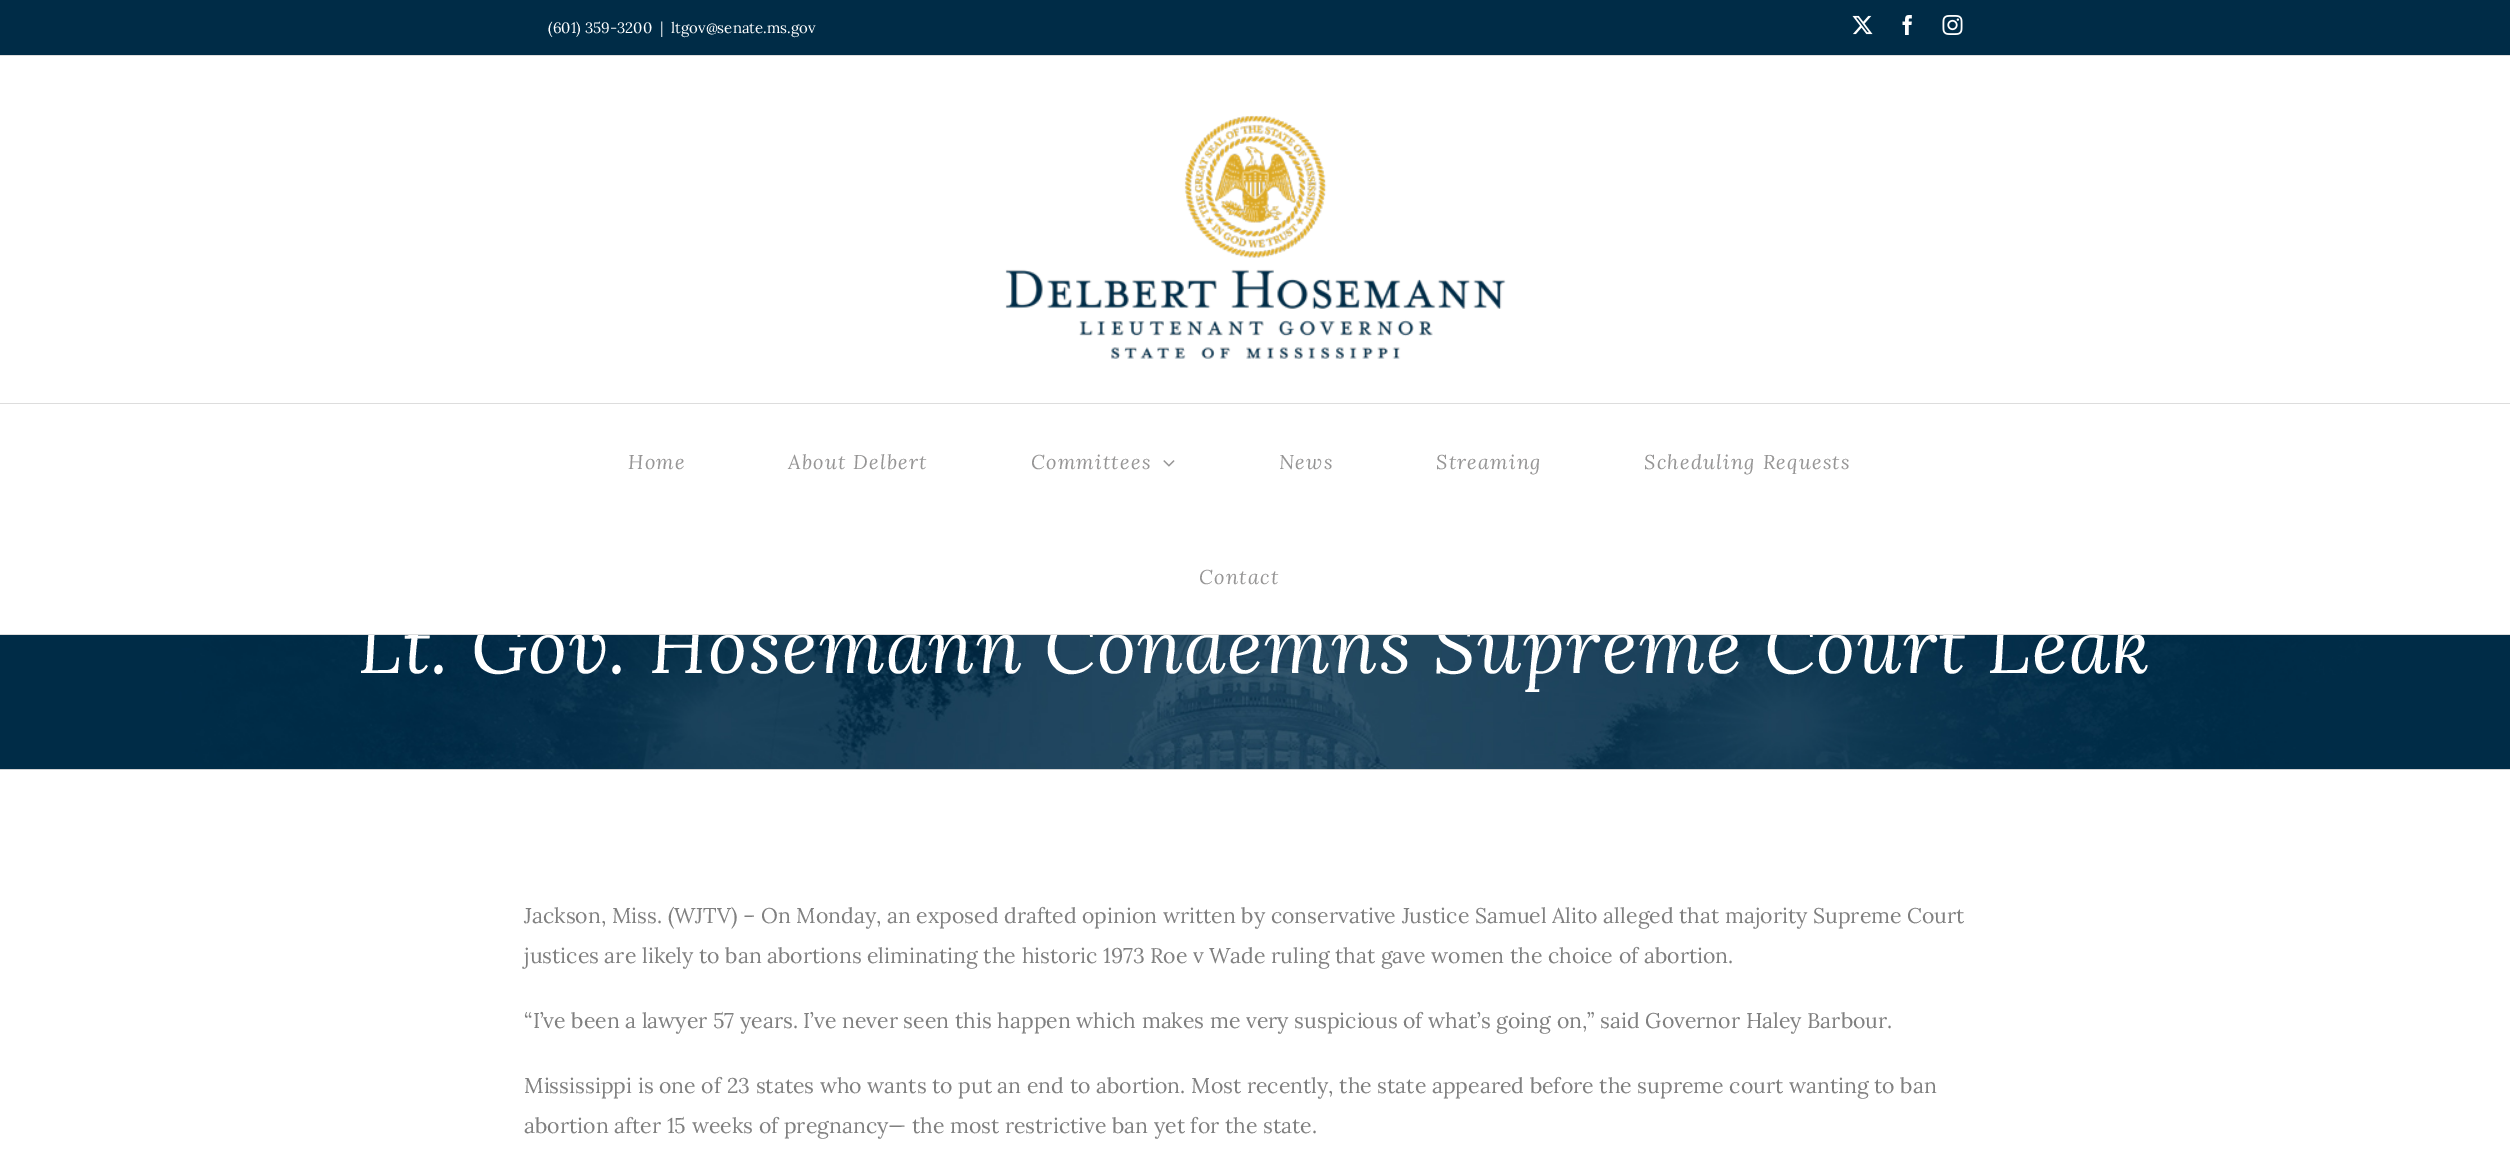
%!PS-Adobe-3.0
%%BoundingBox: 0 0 2510 1152
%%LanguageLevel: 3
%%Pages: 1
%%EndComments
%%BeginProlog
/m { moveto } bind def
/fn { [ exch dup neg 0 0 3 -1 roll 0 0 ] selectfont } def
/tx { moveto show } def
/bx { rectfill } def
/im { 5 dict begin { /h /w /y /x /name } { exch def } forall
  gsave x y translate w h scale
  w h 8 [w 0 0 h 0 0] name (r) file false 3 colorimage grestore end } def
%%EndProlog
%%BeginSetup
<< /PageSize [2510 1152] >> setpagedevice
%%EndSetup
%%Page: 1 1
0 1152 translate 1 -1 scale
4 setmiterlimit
1 setgray
0 0 2510 1152 bx
0 0.173 0.278 setrgbcolor
0 0 2510 55 bx
0.867 setgray
0 55 2510 1 bx
/Lora-Regular 15 fn
1 setgray
(\(601\) 359-3200) 548 33 tx
(|) 660 33 tx
(ltgov@senate.ms.gov) 671 33 tx
(image0.raw) 1852 15 21 20 im
(image1.raw) 1902 15 10 20 im
(image2.raw) 1942 15 21 20 im
0.867 setgray
0 403 2510 1 bx
(image3.raw) 1005 115 501 244 im
(image5.raw) 0 635 2510 134 im
/Lora-Italic 75 fn
1 setgray
358 673 m 1.25 0 (Lt. Gov. Hosemann Condemns Supreme Court Leak) ashow
0.867 setgray
0 634 2510 1 bx
/Lora-Italic 20 fn
0.588 0.584 0.584 setrgbcolor
628 469 m 1.25 0 (Home) ashow
788 469 m 1.25 0 (About Delbert) ashow
1031 469 m 1.25 0 (Committees) ashow
(image4.raw) 1163 460 12 7 im
1279 469 m 1.25 0 (News) ashow
1436 469 m 1.25 0 (Streaming) ashow
1644 469 m 1.25 0 (Scheduling Requests) ashow
1199 584 m 1.25 0 (Contact) ashow
0.824 0.827 0.831 setrgbcolor
0 769 2510 1 bx
/Lora-Regular 21.25 fn
0.502 setgray
(Jackson, Miss. \(WJTV\) – On Monday, an exposed drafted opinion written by conservative Justice Samuel Alito alleged that majority Supreme Court) 524 923 tx
(justices are likely to ban abortions eliminating the historic 1973 Roe v Wade ruling that gave women the choice of abortion.) 524 963 tx
(“I’ve been a lawyer 57 years. I’ve never seen this happen which makes me very suspicious of what’s going on,” said Governor Haley Barbour.) 524 1028 tx
(Mississippi is one of 23 states who wants to put an end to abortion. Most recently, the state appeared before the supreme court wanting to ban) 524 1093 tx
(abortion after 15 weeks of pregnancy— the most restrictive ban yet for the state.) 524 1133 tx
showpage
%%EOF
